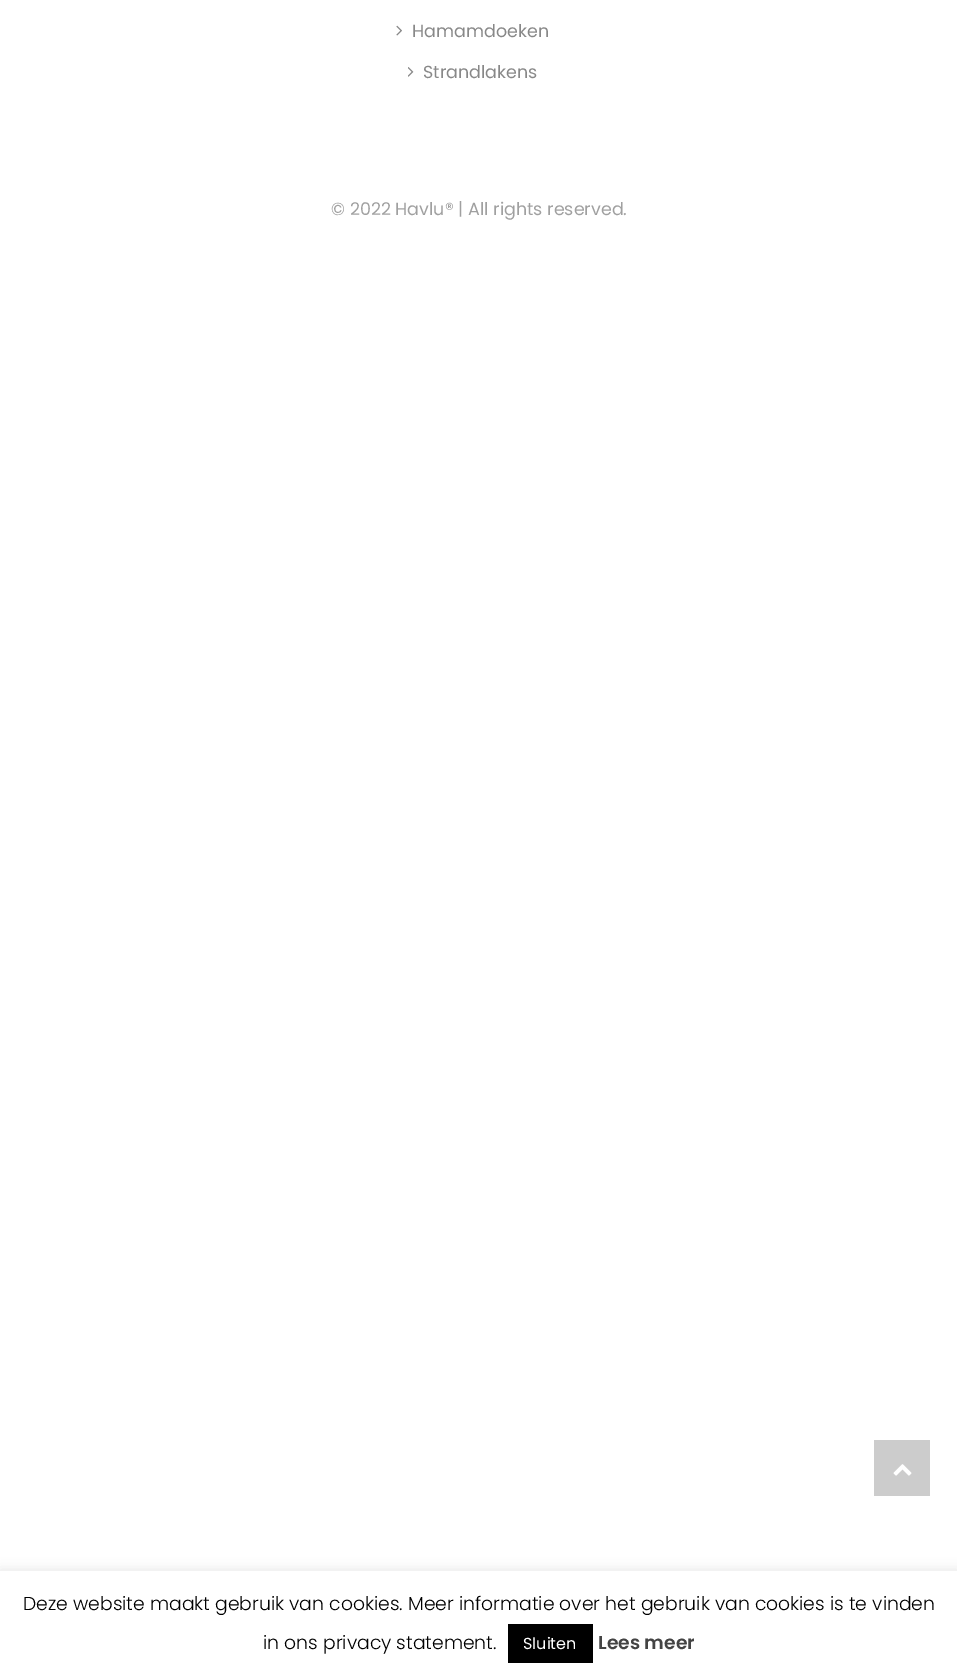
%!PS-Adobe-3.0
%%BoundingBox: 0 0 957 1677
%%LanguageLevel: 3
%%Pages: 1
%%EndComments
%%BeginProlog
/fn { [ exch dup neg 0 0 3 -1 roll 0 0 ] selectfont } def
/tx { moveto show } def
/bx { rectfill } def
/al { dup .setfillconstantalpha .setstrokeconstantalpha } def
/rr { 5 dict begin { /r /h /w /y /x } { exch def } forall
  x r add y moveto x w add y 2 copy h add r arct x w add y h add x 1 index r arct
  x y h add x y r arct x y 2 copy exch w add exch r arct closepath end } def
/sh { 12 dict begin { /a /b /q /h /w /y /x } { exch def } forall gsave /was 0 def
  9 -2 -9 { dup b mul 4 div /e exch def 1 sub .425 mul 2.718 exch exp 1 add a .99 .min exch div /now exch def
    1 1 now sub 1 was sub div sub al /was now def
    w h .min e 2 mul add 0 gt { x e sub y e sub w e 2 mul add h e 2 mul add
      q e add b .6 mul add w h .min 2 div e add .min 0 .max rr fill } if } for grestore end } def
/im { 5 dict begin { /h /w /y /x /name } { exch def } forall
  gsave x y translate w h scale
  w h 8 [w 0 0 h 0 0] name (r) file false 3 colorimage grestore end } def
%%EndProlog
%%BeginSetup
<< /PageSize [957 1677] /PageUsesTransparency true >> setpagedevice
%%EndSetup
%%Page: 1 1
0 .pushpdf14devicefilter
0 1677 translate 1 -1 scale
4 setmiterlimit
1 setgray
0 0 957 1677 bx
(image0.raw) 396 25 6 11 im
/Poppins-Regular 17.5 fn
0.533 setgray
(Hamamdoeken) 412 37 tx
(image1.raw) 408 67 6 10 im
(Strandlakens) 423 78 tx
0.627 setgray
(© 2022 Havlu® | All rights reserved.) 331 215 tx
0.8 setgray
874 1440 56 56 bx
(image2.raw) 893 1464 19 12 im
0.675 0.671 0.671 setrgbcolor
0 1570 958 106 0 6 0.3 sh
1 setgray
0 1571 957 106 bx
/Poppins-Light 18.75 fn
0 setgray
(Deze website maakt gebruik van cookies. Meer informatie over het gebruik van cookies is te vinden) 23 1610 tx
(in ons privacy statement.) 263 1649 tx
508 1624 85 39 bx
/Poppins-Regular 16 fn
1 setgray
(Sluiten) 523 1649 tx
/Poppins-SemiBold 18.75 fn
0.267 setgray
(Lees meer) 598 1649 tx
.poppdf14devicefilter showpage
%%EOF
